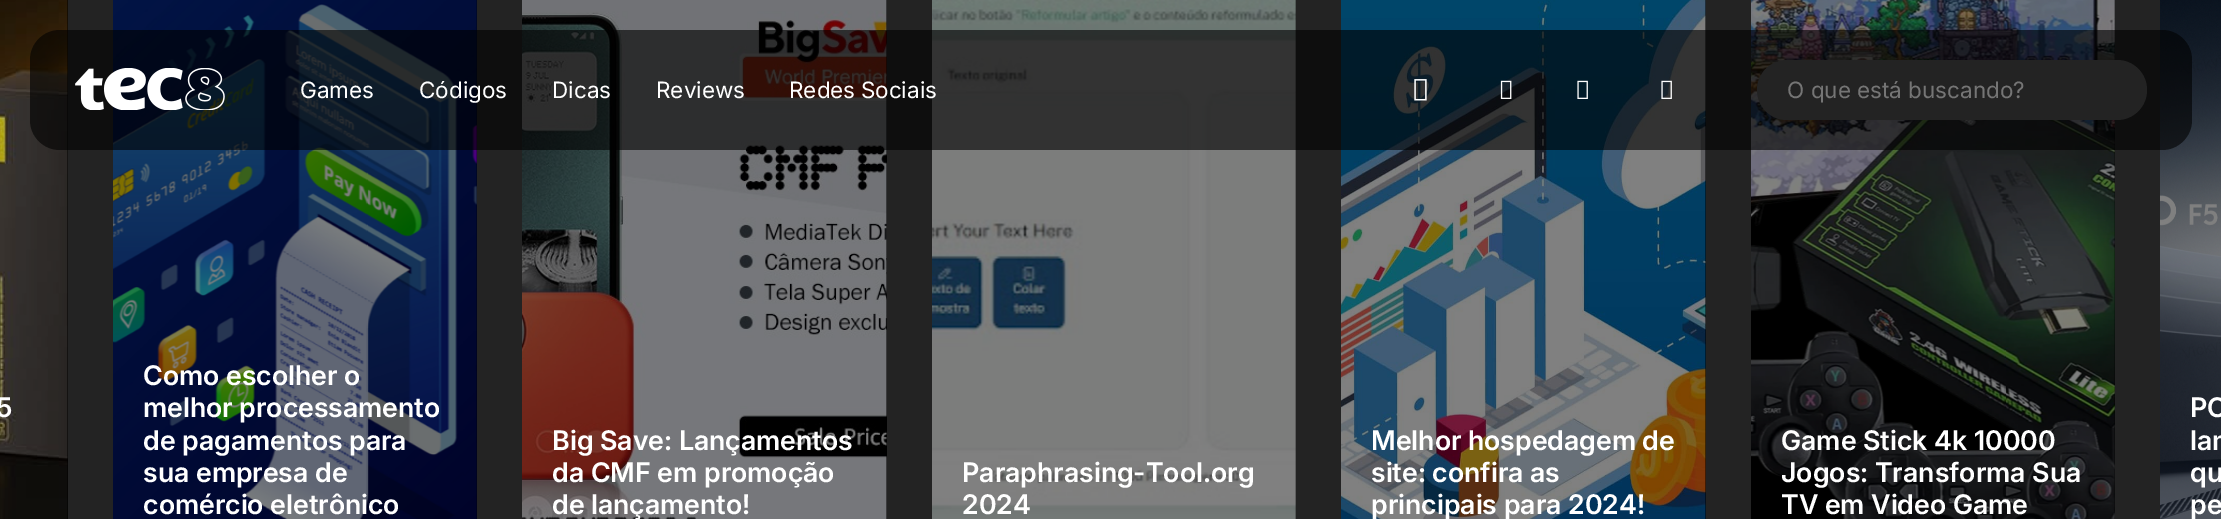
%!PS-Adobe-3.0
%%BoundingBox: 0 0 2221 519
%%LanguageLevel: 3
%%Pages: 1
%%EndComments
%%BeginProlog
/m { moveto } bind def
/f { fill } bind def
/fn { [ exch dup neg 0 0 3 -1 roll 0 0 ] selectfont } def
/tx { moveto show } def
/bx { rectfill } def
/al { dup .setfillconstantalpha .setstrokeconstantalpha } def
/rr { 5 dict begin { /r /h /w /y /x } { exch def } forall
  x r add y moveto x w add y 2 copy h add r arct x w add y h add x 1 index r arct
  x y h add x y r arct x y 2 copy exch w add exch r arct closepath end } def
/im { 5 dict begin { /h /w /y /x /name } { exch def } forall
  gsave x y translate w h scale
  w h 8 [w 0 0 h 0 0] name (r) file false 3 colorimage grestore end } def
%%EndProlog
%%BeginSetup
<< /PageSize [2221 519] /PageUsesTransparency true >> setpagedevice
%%EndSetup
%%Page: 1 1
0 .pushpdf14devicefilter
0 519 translate 1 -1 scale
4 setmiterlimit
0.137 setgray
0 0 2221 519 bx
0 setgray
0 0 68 519 bx
(image5.raw) 0 0 68 519 im
113 0 364 519 bx
(image6.raw) 113 0 364 519 im
522 0 365 519 bx
(image7.raw) 522 0 365 519 im
932 0 364 519 bx
(image8.raw) 932 0 364 519 im
1341 0 365 519 bx
(image9.raw) 1341 0 365 519 im
1751 0 364 519 bx
(image10.raw) 1751 0 364 519 im
2160 0 61 519 bx
(image11.raw) 2160 0 61 519 im
0.6 al
30 30 2162 120 30 rr f
1 al
(image0.raw) 75 68 150 42 im
/Inter-Regular 22.5 fn
1 setgray
(Games) 300 98 tx
(Códigos) 419 98 tx
(Dicas) 552 98 tx
(Reviews) 656 98 tx
789 98 m -1 0 32 (Redes Sociais) widthshow
(image1.raw) 1414 79 13 22 im
(image2.raw) 1500 80 12 19 im
(image3.raw) 1577 80 11 19 im
(image4.raw) 1661 80 11 19 im
0.137 setgray
1757 60 390 60 30 rr f
0.459 setgray
(O que está buscando?) 1787 98 tx
/Inter-SemiBold 27 fn
1 setgray
(5) -4 417 tx
(Como escolher o) 143 385 tx
(melhor processamento) 143 417 tx
(de pagamentos para) 143 450 tx
(sua empresa de) 143 482 tx
(comércio eletrônico) 143 514 tx
(Big Save: Lançamentos) 552 450 tx
(da CMF em promoção) 552 482 tx
(de lançamento!) 552 514 tx
(Paraphrasing-Tool.org) 962 482 tx
(2024) 962 514 tx
(Melhor hospedagem de) 1371 450 tx
(site: confira as) 1371 482 tx
(principais para 2024!) 1371 514 tx
(Game Stick 4k 10000) 1781 450 tx
(Jogos: Transforma Sua) 1781 482 tx
(TV em Video Game) 1781 514 tx
(PO) 2190 417 tx
(lan) 2190 450 tx
(qu) 2190 482 tx
(pe) 2190 514 tx
.poppdf14devicefilter showpage
%%EOF
